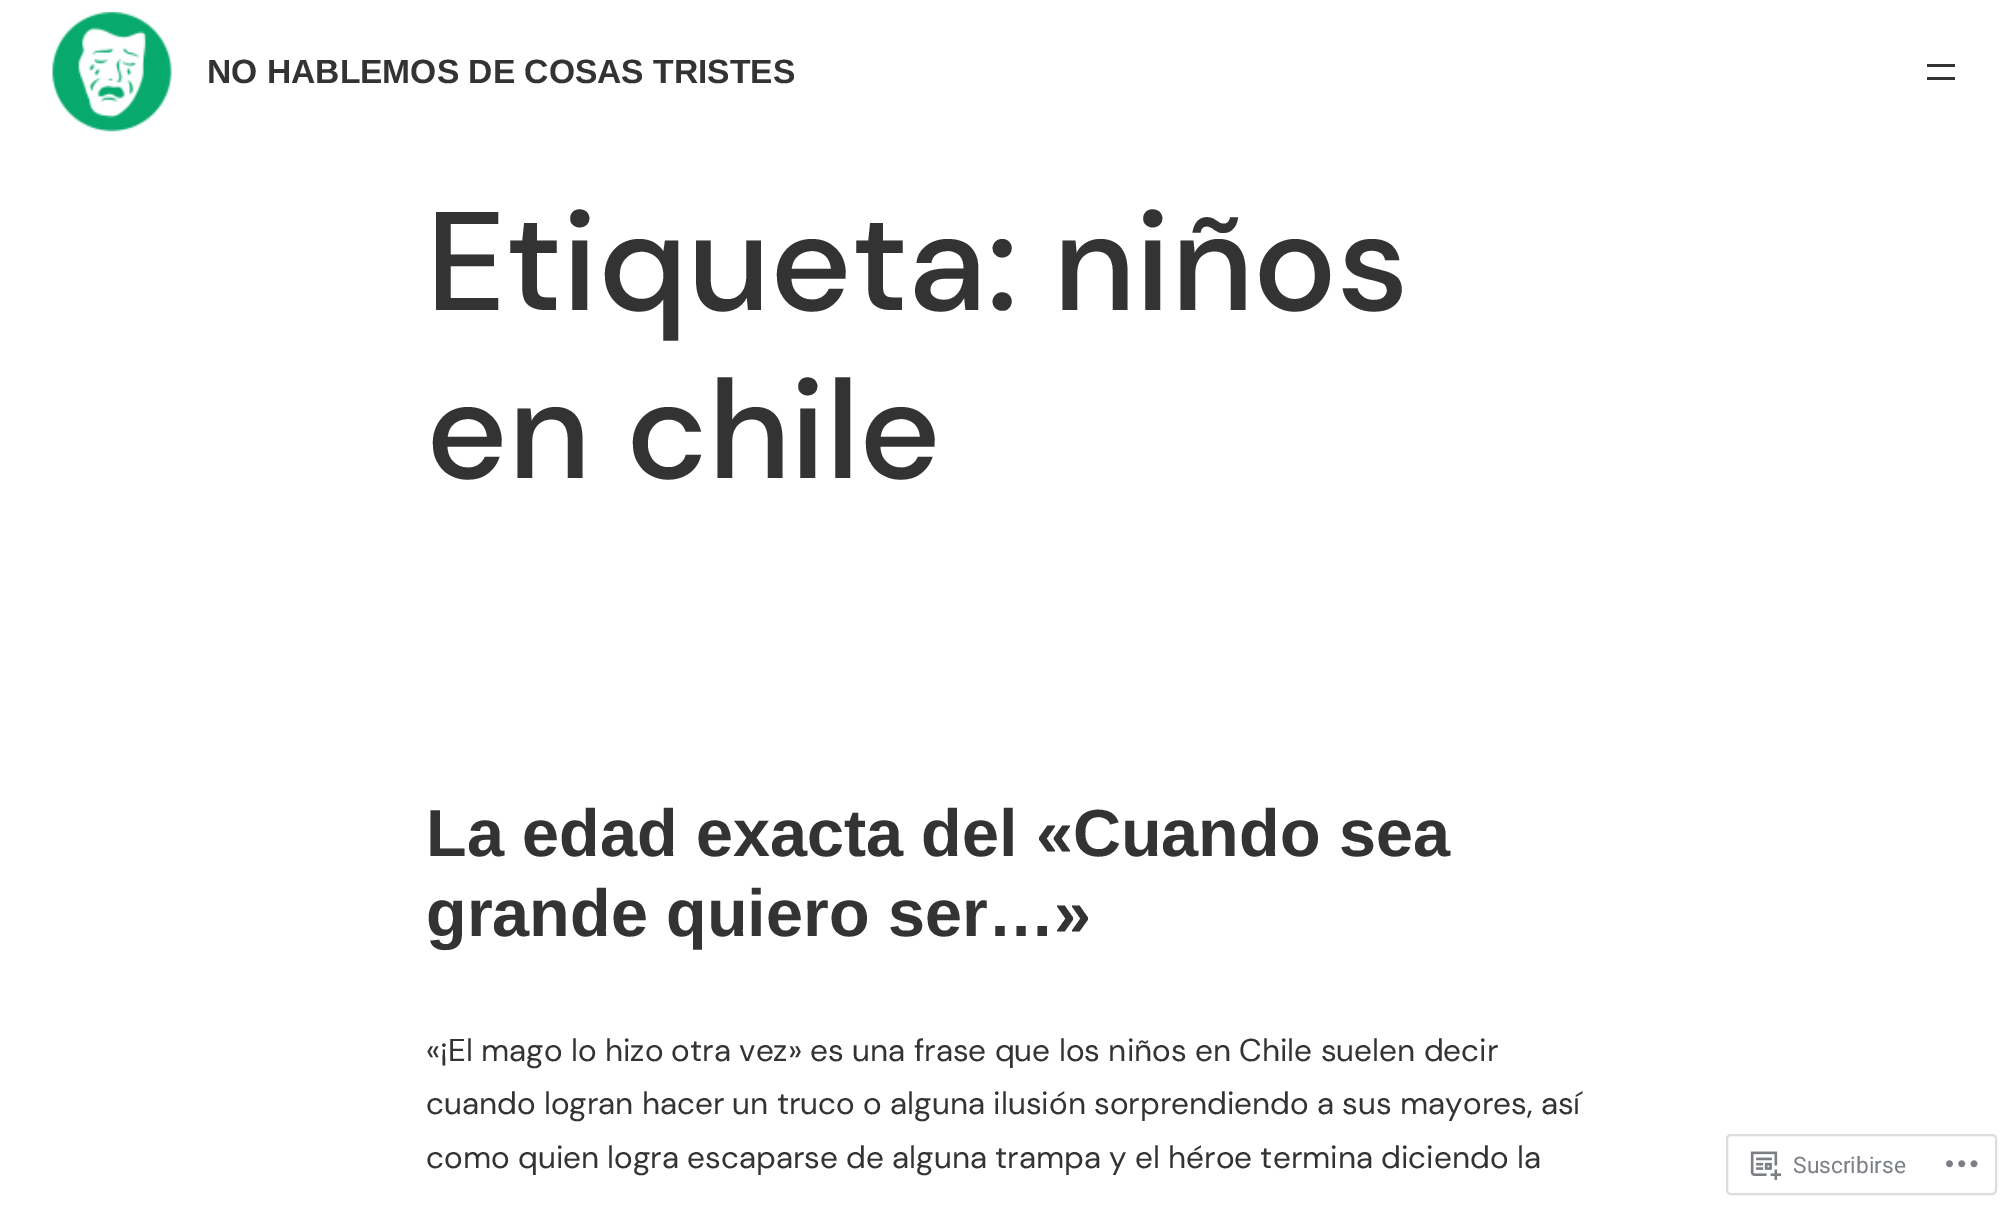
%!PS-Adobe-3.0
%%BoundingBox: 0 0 2014 1212
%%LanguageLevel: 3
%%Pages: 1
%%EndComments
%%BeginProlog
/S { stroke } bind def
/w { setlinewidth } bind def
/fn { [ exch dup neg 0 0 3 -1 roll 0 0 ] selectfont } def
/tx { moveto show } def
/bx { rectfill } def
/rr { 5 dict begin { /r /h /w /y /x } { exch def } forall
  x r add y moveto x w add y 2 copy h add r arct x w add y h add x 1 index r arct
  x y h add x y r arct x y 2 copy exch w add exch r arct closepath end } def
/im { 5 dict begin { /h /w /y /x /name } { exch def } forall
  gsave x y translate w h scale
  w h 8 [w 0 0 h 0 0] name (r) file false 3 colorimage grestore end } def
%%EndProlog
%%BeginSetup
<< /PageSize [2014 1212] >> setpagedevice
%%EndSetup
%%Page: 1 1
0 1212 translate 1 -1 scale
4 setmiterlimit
1 setgray
0 0 2014 1212 bx
(image0.raw) 52 12 120 120 im
/LiberationSans-Bold 33.6 fn
0.2 setgray
(NO HABLEMOS DE COSAS TRISTES) 207 83 tx
1927 64 28 3 bx
1927 77 28 3 bx
/DMSans-Medium 140 fn
(Etiqueta: niños) 426 310 tx
(en chile) 426 478 tx
/LiberationSans-Bold 66.5 fn
(La edad exacta del «Cuando sea) 426 856 tx
(grande quiero ser…») 426 936 tx
/DMSans-Regular 31.5 fn
(«¡El mago lo hizo otra vez» es una frase que los niños en Chile suelen decir) 426 1061 tx
(cuando logran hacer un truco o alguna ilusión sorprendiendo a sus mayores, así) 426 1114 tx
(como quien logra escaparse de alguna trampa y el héroe termina diciendo la) 426 1168 tx
0.867 0.867 0.875 setrgbcolor
2 w
1727 1135 269 59 4 rr S
(image1.raw) 1750 1151 32 29 im
/Roboto-Regular 22.75 fn
0.482 0.498 0.522 setrgbcolor
(Suscribirse) 1793 1173 tx
(image2.raw) 1946 1160 32 8 im
showpage
%%EOF
